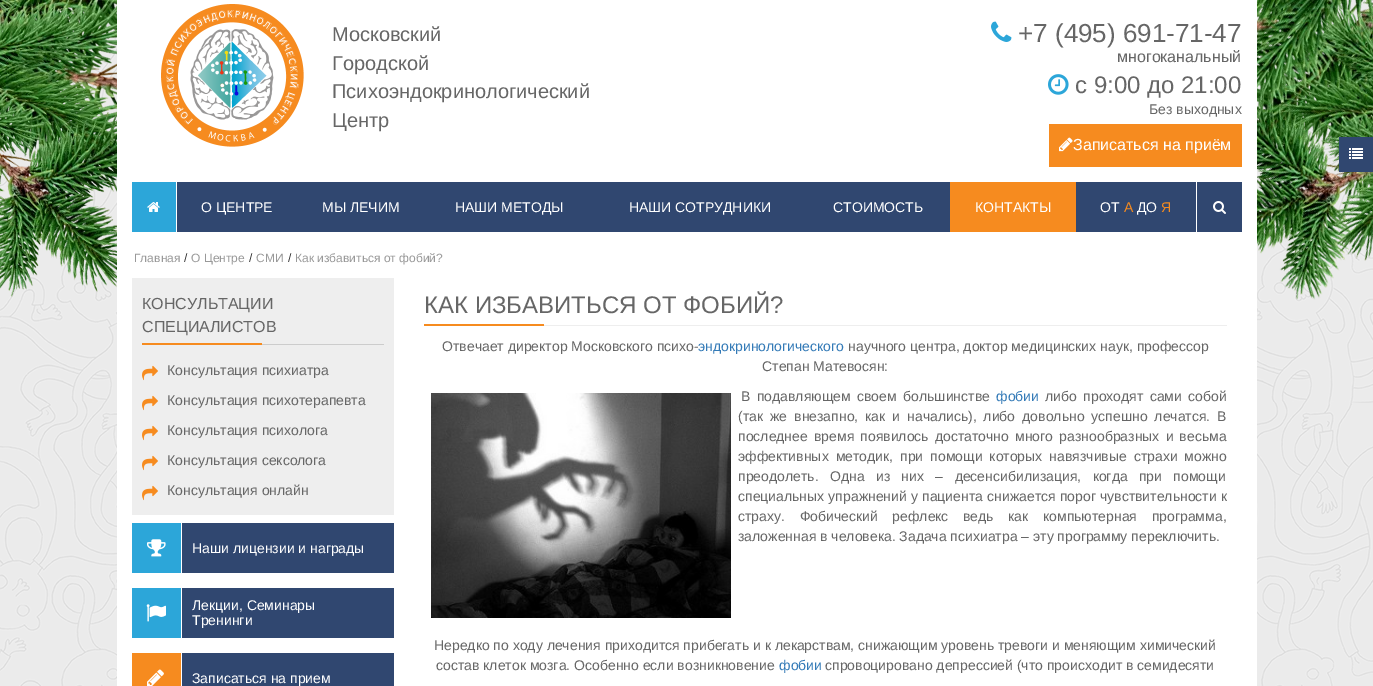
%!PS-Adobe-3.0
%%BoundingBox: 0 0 1373 686
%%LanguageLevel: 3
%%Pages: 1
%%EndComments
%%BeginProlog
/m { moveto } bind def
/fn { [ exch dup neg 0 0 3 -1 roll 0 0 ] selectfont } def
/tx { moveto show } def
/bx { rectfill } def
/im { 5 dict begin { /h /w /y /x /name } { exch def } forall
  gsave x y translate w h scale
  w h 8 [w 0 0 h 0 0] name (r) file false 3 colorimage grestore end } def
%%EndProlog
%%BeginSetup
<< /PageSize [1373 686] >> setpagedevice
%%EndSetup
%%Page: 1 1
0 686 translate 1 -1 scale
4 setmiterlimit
1 setgray
0 0 1373 686 bx
(image0.raw) 0 0 1373 686 im
(image1.raw) 0 0 117 297 im
(image2.raw) 1257 0 116 300 im
117 0 1140 686 bx
(image3.raw) 161 4 143 143 im
/LiberationSans-Regular 20 fn
0.4 setgray
(Московский) 332 41 tx
(Городской) 332 70 tx
(Психоэндокринологический) 332 98 tx
(Центр) 332 127 tx
(image4.raw) 991 21 21 21 im
/LiberationSans-Regular 26 fn
(+7 \(495\) 691-71-47) 1018 42 tx
/LiberationSans-Regular 16 fn
(многоканальный) 1117 62 tx
(image5.raw) 1048 74 21 21 im
/LiberationSans-Regular 24 fn
(с 9:00 до 21:00) 1075 93 tx
/LiberationSans-Regular 14 fn
(Без выходных) 1149 114 tx
0.965 0.545 0.122 setrgbcolor
1049 124 193 43 bx
(image6.raw) 1059 137 14 15 im
/LiberationSans-Regular 16 fn
1 setgray
(Записаться на приём) 1073 150 tx
0.173 0.651 0.851 setrgbcolor
132 182 44 50 bx
(image7.raw) 147 202 13 10 im
0.188 0.278 0.439 setrgbcolor
177 182 773 50 bx
/LiberationSans-Regular 14 fn
1 setgray
(О ЦЕНТРЕ) 201 212 tx
(МЫ ЛЕЧИМ) 322 212 tx
(НАШИ МЕТОДЫ) 455 212 tx
(НАШИ СОТРУДНИКИ) 629 212 tx
(СТОИМОСТЬ) 833 212 tx
0.965 0.545 0.122 setrgbcolor
950 182 126 50 bx
1 setgray
(КОНТАКТЫ) 975 212 tx
0.188 0.278 0.439 setrgbcolor
1076 182 120 50 bx
1 setgray
(ОТ) 1100 212 tx
0.965 0.545 0.122 setrgbcolor
(А) 1124 212 tx
1 setgray
(ДО) 1137 212 tx
0.965 0.545 0.122 setrgbcolor
(Я) 1161 212 tx
0.188 0.278 0.439 setrgbcolor
1197 182 45 50 bx
(image8.raw) 1213 201 13 13 im
1339 137 34 35 bx
(image9.raw) 1349 148 14 11 im
/LiberationSans-Regular 12 fn
0.6 setgray
(Главная) 134 262 tx
0.2 setgray
(/) 184 262 tx
0.6 setgray
(О Центре) 191 262 tx
0.2 setgray
(/) 249 262 tx
0.6 setgray
(СМИ) 256 262 tx
0.2 setgray
(/) 288 262 tx
0.6 setgray
(Как избавиться от фобий?) 295 262 tx
0.933 setgray
132 278 262 237 bx
0.8 setgray
262 344 122 1 bx
/LiberationSans-Regular 16 fn
0.4 setgray
(КОНСУЛЬТАЦИИ) 142 309 tx
(СПЕЦИАЛИСТОВ) 142 332 tx
0.965 0.545 0.122 setrgbcolor
142 343 120 2 bx
(image10.raw) 142 365 16 16 im
/LiberationSans-Regular 14 fn
0.4 setgray
(Консультация психиатра) 167 375 tx
(image10.raw) 142 395 16 16 im
(Консультация психотерапевта) 167 405 tx
(image10.raw) 142 425 16 16 im
(Консультация психолога) 167 435 tx
(image10.raw) 142 455 16 16 im
(Консультация сексолога) 167 465 tx
(image10.raw) 142 485 16 16 im
(Консультация онлайн) 167 495 tx
0.188 0.278 0.439 setrgbcolor
182 523 212 50 bx
0.173 0.651 0.851 setrgbcolor
132 523 49 50 bx
(image11.raw) 147 539 19 18 im
1 setgray
(Наши лицензии и награды) 192 553 tx
0.188 0.278 0.439 setrgbcolor
182 588 212 50 bx
0.173 0.651 0.851 setrgbcolor
132 588 49 50 bx
(image12.raw) 146 604 20 18 im
1 setgray
(Лекции, Семинары) 192 610 tx
(Тренинги) 192 625 tx
0.188 0.278 0.439 setrgbcolor
182 653 212 33 bx
0.965 0.545 0.122 setrgbcolor
132 653 49 33 bx
(image13.raw) 147 669 17 17 im
1 setgray
(Записаться на прием) 192 683 tx
0.933 setgray
544 325 683 1 bx
/LiberationSans-Regular 24 fn
0.4 setgray
(КАК ИЗБАВИТЬСЯ ОТ ФОБИЙ?) 424 313 tx
0.965 0.545 0.122 setrgbcolor
424 324 120 2 bx
/LiberationSans-Regular 14 fn
0.4 setgray
(Отвечает директор Московского психо-) 442 351 tx
0.2 0.478 0.718 setrgbcolor
(эндокринологического) 698 351 tx
0.4 setgray
(научного центра, доктор медицинских наук, профессор) 848 351 tx
(Степан Матевосян:) 762 371 tx
(image14.raw) 431 393 300 225 im
741 401 m 2.5 0 32 (В подавляющем своем большинстве) widthshow
0.2 0.478 0.718 setrgbcolor
(фобии) 996 401 tx
0.4 setgray
1045 401 m 2.5 0 32 (либо проходят сами собой) widthshow
738 421 m 3.1 0 32 (\(так же внезапно, как и начались\), либо довольно успешно лечатся. В) widthshow
738 441 m 2.25 0 32 (последнее время появилось достаточно много разнообразных и весьма) widthshow
738 461 m 3.1 0 32 (эффективных методик, при помощи которых навязчивые страхи можно) widthshow
738 481 m 7.5 0 32 (преодолеть. Одна из них – десенсибилизация, когда при помощи) widthshow
738 501 m 0.25 0 32 (специальных упражнений у пациента снижается порог чувствительности к) widthshow
738 521 m 10.75 0 32 (страху. Фобический рефлекс ведь как компьютерная программа,) widthshow
(заложенная в человека. Задача психиатра – эту программу переключить.) 738 541 tx
(Нередко по ходу лечения приходится прибегать и к лекарствам, снижающим уровень тревоги и меняющим химический) 434 650 tx
(состав клеток мозга. Особенно если возникновение) 436 670 tx
0.2 0.478 0.718 setrgbcolor
(фобии) 779 670 tx
0.4 setgray
(спровоцировано депрессией \(что происходит в семидесяти) 825 670 tx
showpage
%%EOF
